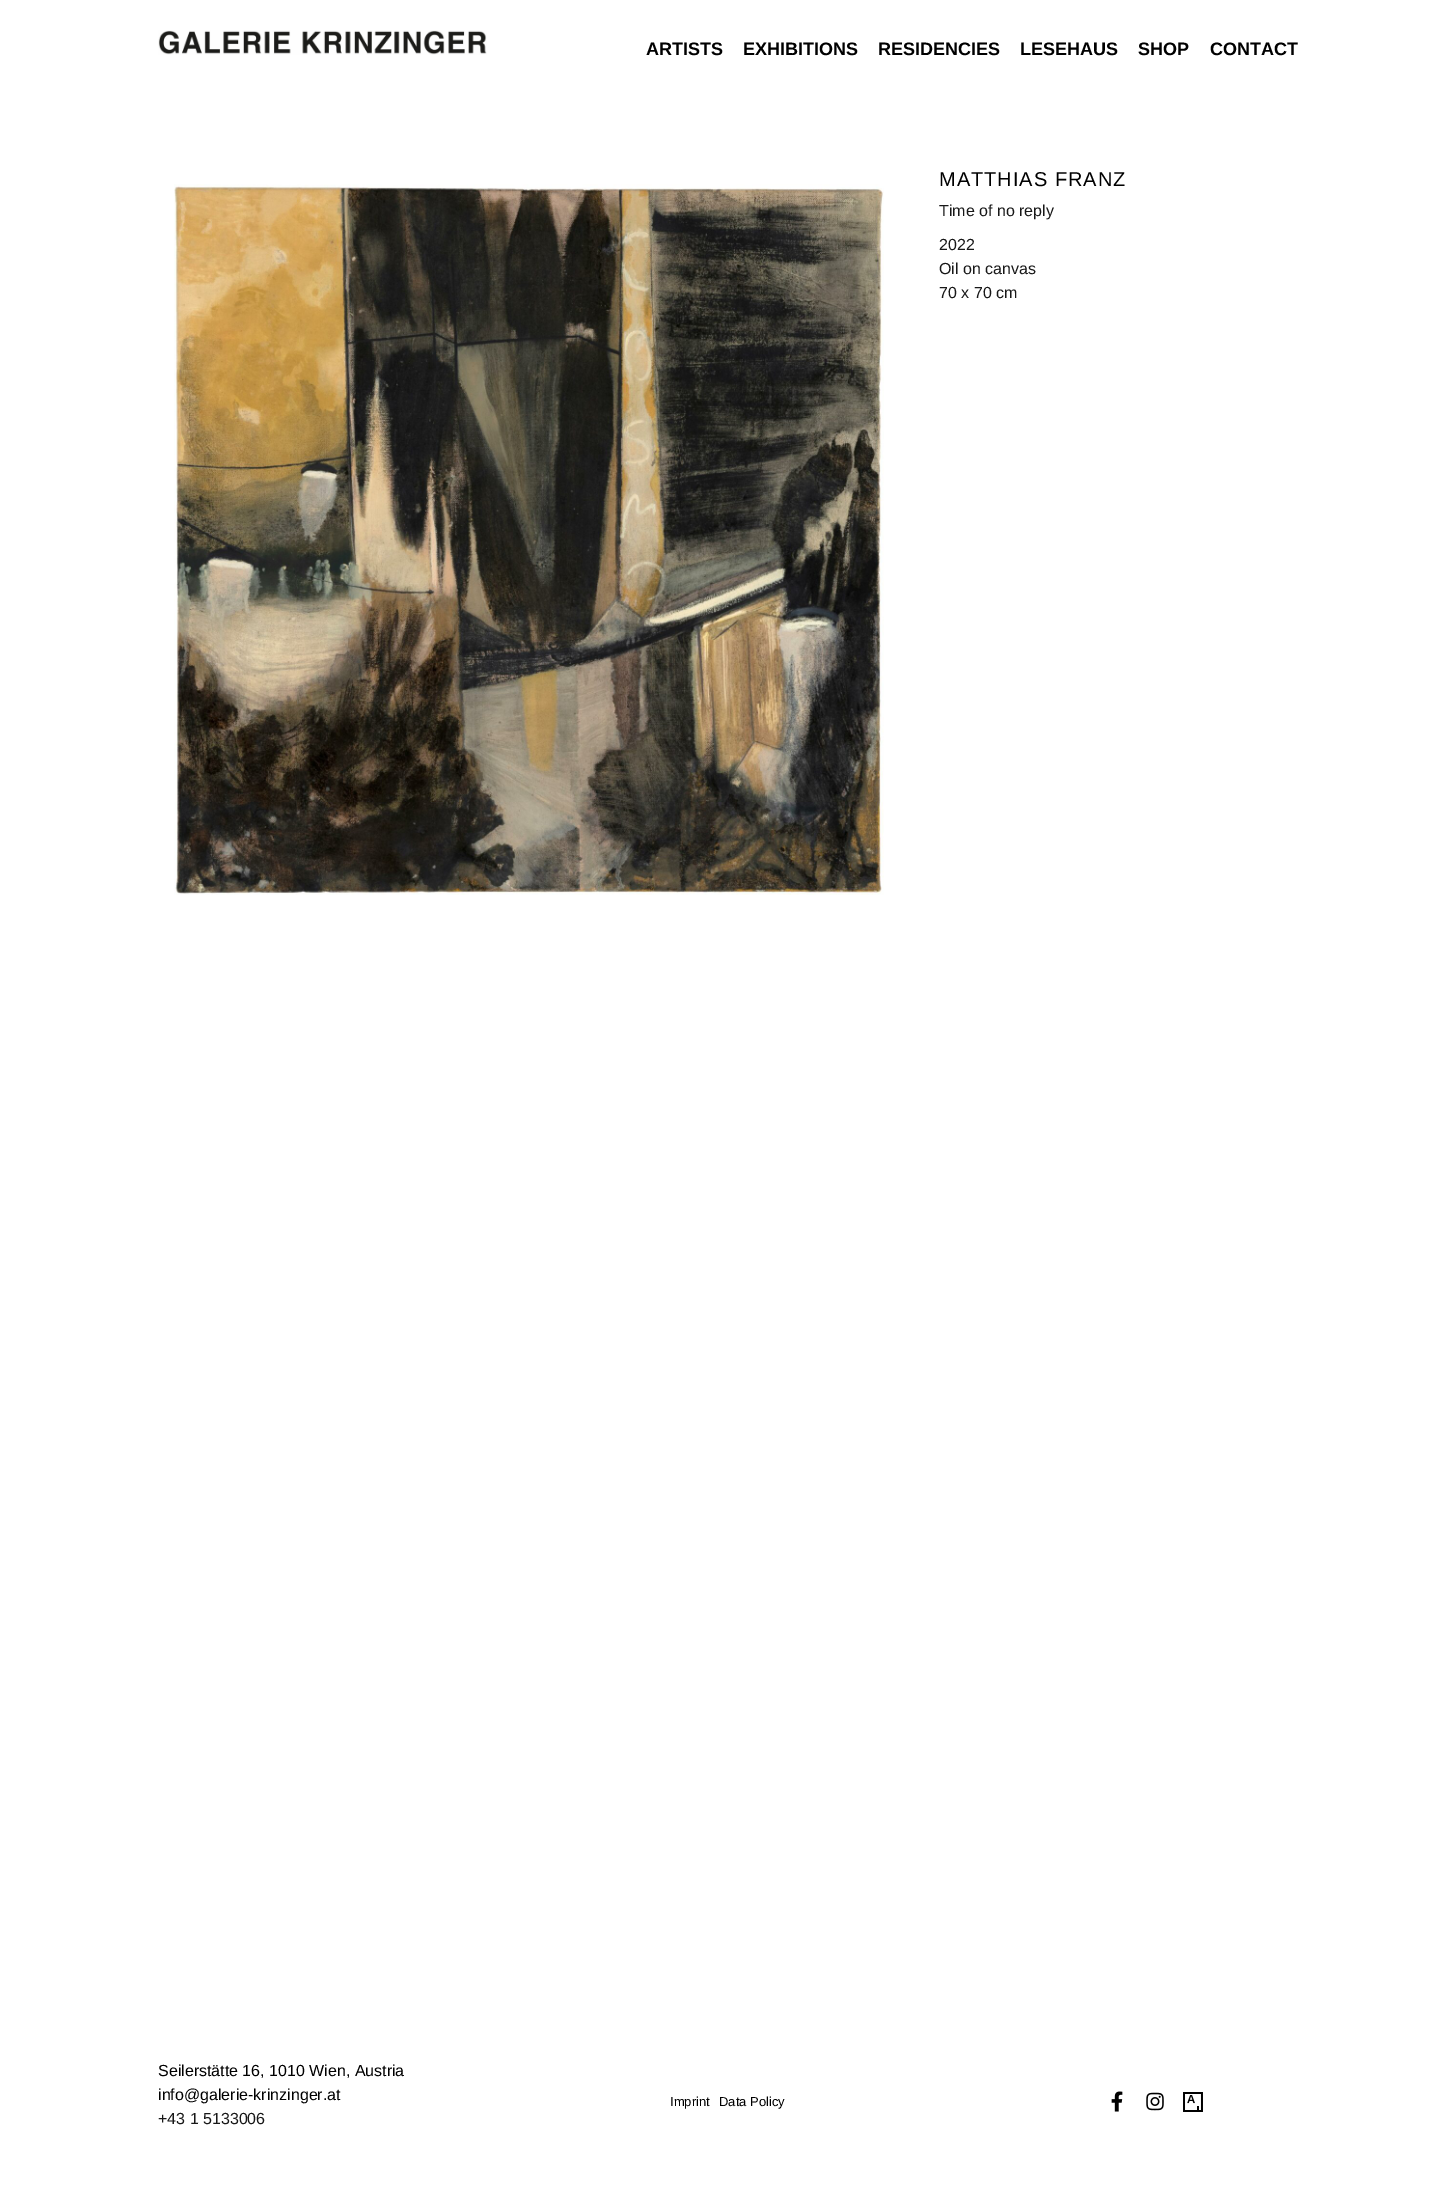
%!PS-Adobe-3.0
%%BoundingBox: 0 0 1455 2205
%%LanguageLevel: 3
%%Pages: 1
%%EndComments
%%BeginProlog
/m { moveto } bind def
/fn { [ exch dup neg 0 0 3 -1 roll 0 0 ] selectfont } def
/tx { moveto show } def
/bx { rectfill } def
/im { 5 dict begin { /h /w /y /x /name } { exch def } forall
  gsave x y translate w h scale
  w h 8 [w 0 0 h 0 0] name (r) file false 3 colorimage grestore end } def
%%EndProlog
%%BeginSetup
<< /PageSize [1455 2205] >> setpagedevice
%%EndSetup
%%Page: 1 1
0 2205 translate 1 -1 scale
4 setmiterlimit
1 setgray
0 0 1455 2205 bx
(image0.raw) 158 30 329 25 im
/LiberationSans-Bold 18 fn
0 setgray
(ARTISTS) 646 55 tx
(EXHIBITIONS) 743 55 tx
(RESIDENCIES) 878 55 tx
(LESEHAUS) 1020 55 tx
(SHOP) 1138 55 tx
(CONTACT) 1210 55 tx
(image1.raw) 174 184 710 711 im
/LiberationSans-Regular 20 fn
939 186 m 1 0 (MATTHIAS FRANZ) ashow
/LiberationSans-Regular 16 fn
0.094 setgray
(Time of no reply) 939 216 tx
(2022) 939 250 tx
(Oil on canvas) 939 274 tx
(70 x 70 cm) 939 298 tx
0 setgray
(Seilerstätte 16, 1010 Wien, Austria) 158 2076 tx
(info@galerie-krinzinger.at) 158 2100 tx
0.094 setgray
(+43 1 5133006) 158 2124 tx
/LiberationSans-Regular 13 fn
0 setgray
(Imprint) 670 2106 tx
(Data Policy) 719 2106 tx
(image2.raw) 1111 2091 12 21 im
(image3.raw) 1146 2092 18 19 im
(image4.raw) 1183 2092 20 20 im
showpage
%%EOF
